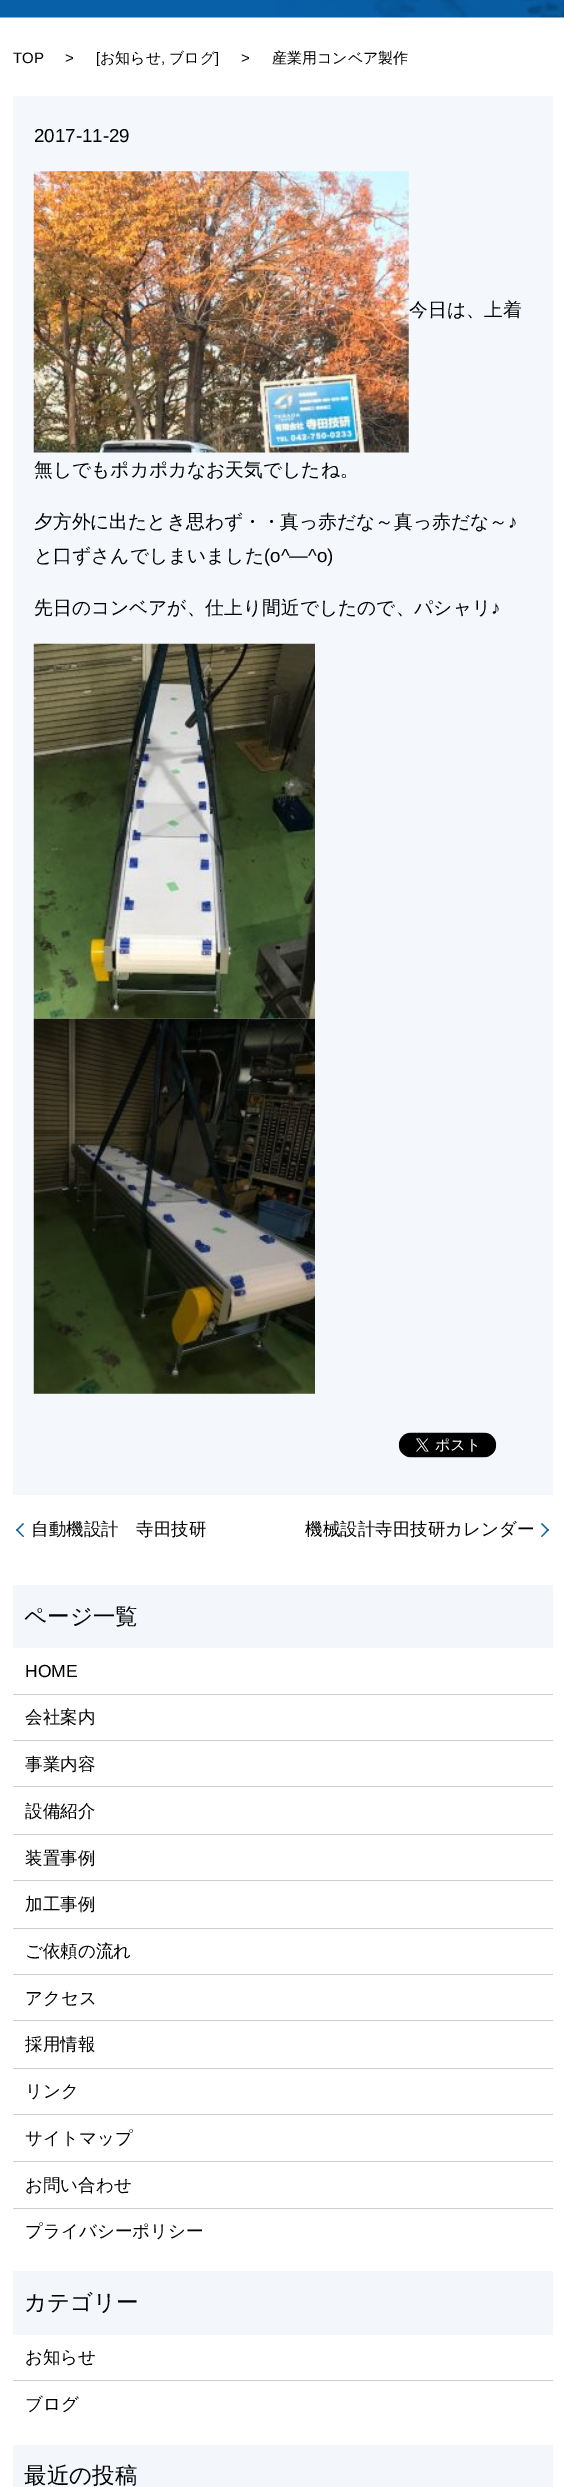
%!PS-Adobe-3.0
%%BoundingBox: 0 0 564 2487
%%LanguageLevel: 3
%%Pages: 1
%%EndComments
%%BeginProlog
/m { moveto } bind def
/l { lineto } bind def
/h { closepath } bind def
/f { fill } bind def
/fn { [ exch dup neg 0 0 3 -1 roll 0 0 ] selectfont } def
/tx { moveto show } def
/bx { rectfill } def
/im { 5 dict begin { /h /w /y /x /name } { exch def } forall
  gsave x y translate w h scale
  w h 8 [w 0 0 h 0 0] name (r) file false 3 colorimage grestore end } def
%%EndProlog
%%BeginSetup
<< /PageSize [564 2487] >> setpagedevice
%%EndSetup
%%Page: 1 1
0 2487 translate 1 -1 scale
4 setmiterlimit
1 setgray
0 0 564 2487 bx
(image0.raw) 0 0 564 18 im
/LiberationSans-Regular 15 fn
0 setgray
(TOP) 13 63 tx
(>) 65 63 tx
([) 96 63 tx
/WenQuanYiZenHei-Medium 15 fn
(お知らせ) 100 63 tx
(ブログ) 169 63 tx
/LiberationSans-Regular 15 fn
(]) 215 63 tx
(>) 241 63 tx
(,) 161 63 tx
/WenQuanYiZenHei-Medium 15 fn
(産業用コンベア製作) 272 63 tx
0.957 0.973 0.988 setrgbcolor
13 96 540 1399 bx
/LiberationSans-Regular 18.75 fn
0 setgray
(2017-11-29) 34 142 tx
(image1.raw) 33 171 376 282 im
/WenQuanYiZenHei-Medium 18.75 fn
(今日は、上着) 409 316 tx
(無しでもポカポカなお天気でしたね。) 34 476 tx
(夕方外に出たとき思わず・・真っ赤だな～真っ赤だな～) 34 528 tx
/LiberationSans-Regular 18.75 fn
(♪) 508 528 tx
/WenQuanYiZenHei-Medium 18.75 fn
(と口ずさんでしまいました) 34 562 tx
/LiberationSans-Regular 18.75 fn
(\(o^―^o\)) 264 562 tx
/WenQuanYiZenHei-Medium 18.75 fn
(先日のコンベアが、仕上り間近でしたので、パシャリ) 34 614 tx
/LiberationSans-Regular 18.75 fn
(♪) 491 614 tx
(image2.raw) 33 643 282 376 im
(image3.raw) 33 1018 282 376 im
(image4.raw) 398 1432 99 26 im
0.031 0.376 0.659 setrgbcolor
16 1530 m 23 1523 l 24 1524 l 17 1531 l h f
/WenQuanYiZenHei-Medium 17.5 fn
0 setgray
(自動機設計　寺田技研) 31 1535 tx
0.031 0.376 0.659 setrgbcolor
23 1537 m 16 1530 l 17 1529 l 24 1536.5 l h f
0 setgray
(機械設計寺田技研カレンダー) 305 1535 tx
0.031 0.376 0.659 setrgbcolor
542 1523 m 549 1530 l 548 1531 l 541 1524 l h f
549 1530 m 542 1537 l 541 1536.5 l 548 1529 l h f
0.953 0.969 0.984 setrgbcolor
13 1585 540 63 bx
/WenQuanYiZenHei-Medium 22.5 fn
0 setgray
(ページ一覧) 24 1624 tx
0.8 setgray
13 1694 540 1 bx
/LiberationSans-Regular 17.5 fn
0 setgray
(HOME) 25 1677 tx
0.8 setgray
13 1740 540 1 bx
/WenQuanYiZenHei-Medium 17.5 fn
0 setgray
(会社案内) 25 1723 tx
0.8 setgray
13 1786 540 1 bx
0 setgray
(事業内容) 25 1770 tx
0.8 setgray
13 1834 540 1 bx
0 setgray
(設備紹介) 25 1817 tx
0.8 setgray
13 1880 540 1 bx
0 setgray
(装置事例) 25 1864 tx
0.8 setgray
13 1928 540 1 bx
0 setgray
(加工事例) 25 1910 tx
0.8 setgray
13 1974 540 1 bx
0 setgray
(ご依頼の流れ) 25 1957 tx
0.8 setgray
13 2020 540 1 bx
0 setgray
(アクセス) 25 2004 tx
0.8 setgray
13 2068 540 1 bx
0 setgray
(採用情報) 25 2050 tx
0.8 setgray
13 2114 540 1 bx
0 setgray
(リンク) 25 2097 tx
0.8 setgray
13 2161 540 1 bx
0 setgray
(サイトマップ) 25 2144 tx
0.8 setgray
13 2208 540 1 bx
0 setgray
(お問い合わせ) 25 2191 tx
(プライバシーポリシー) 25 2237 tx
0.953 0.969 0.984 setrgbcolor
13 2271 540 64 bx
/WenQuanYiZenHei-Medium 22.5 fn
0 setgray
(カテゴリー) 24 2310 tx
0.8 setgray
13 2380 540 1 bx
/WenQuanYiZenHei-Medium 17.5 fn
0 setgray
(お知らせ) 25 2363 tx
(ブログ) 25 2410 tx
0.953 0.969 0.984 setrgbcolor
13 2445 540 42 bx
/WenQuanYiZenHei-Medium 22.5 fn
0 setgray
(最近の投稿) 24 2483 tx
showpage
%%EOF
